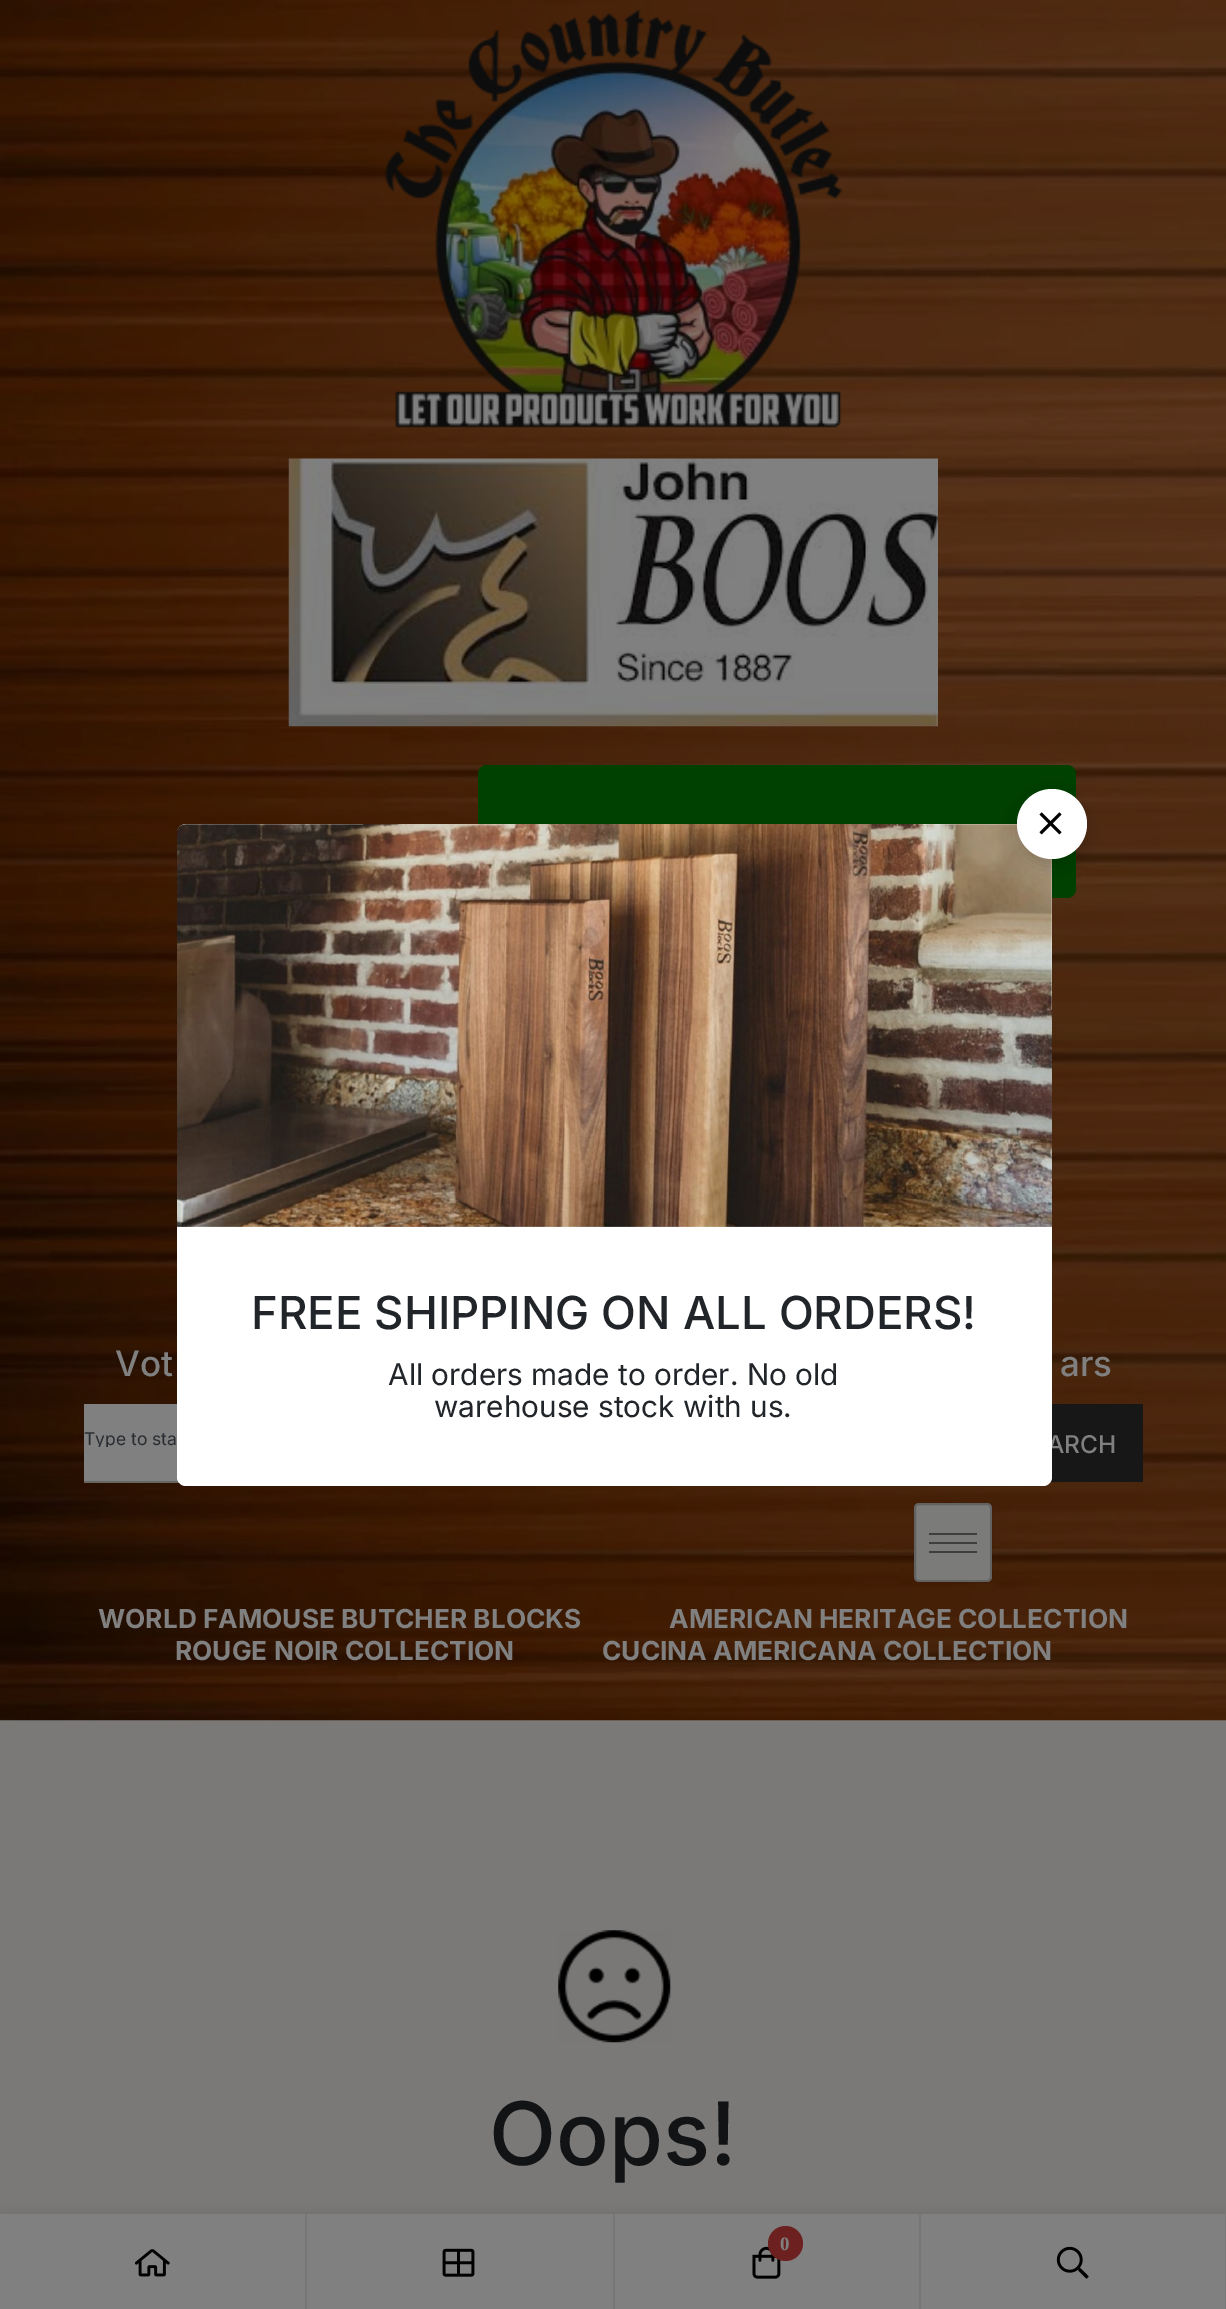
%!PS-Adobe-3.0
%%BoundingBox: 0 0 1226 2309
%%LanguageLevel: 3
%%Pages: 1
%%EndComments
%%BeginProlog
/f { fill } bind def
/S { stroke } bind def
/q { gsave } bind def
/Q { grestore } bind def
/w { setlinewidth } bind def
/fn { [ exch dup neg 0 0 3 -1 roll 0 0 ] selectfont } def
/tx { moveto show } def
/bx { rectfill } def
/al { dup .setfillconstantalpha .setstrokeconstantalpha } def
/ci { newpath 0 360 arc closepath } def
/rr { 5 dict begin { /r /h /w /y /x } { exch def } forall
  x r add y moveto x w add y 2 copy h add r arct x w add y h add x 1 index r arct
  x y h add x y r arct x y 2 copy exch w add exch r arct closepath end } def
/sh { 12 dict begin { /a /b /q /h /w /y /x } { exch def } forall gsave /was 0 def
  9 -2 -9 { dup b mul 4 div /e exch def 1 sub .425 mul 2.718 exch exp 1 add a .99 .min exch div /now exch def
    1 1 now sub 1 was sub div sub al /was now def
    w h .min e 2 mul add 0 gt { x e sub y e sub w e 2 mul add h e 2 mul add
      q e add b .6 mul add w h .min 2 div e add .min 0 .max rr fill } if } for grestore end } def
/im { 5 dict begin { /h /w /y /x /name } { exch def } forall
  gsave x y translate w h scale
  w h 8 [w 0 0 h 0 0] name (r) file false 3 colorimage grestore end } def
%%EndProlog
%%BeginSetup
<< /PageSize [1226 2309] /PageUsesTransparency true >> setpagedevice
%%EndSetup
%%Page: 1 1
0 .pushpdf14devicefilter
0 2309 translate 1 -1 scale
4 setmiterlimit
0.482 0.475 0.467 setrgbcolor
0 0 1226 2309 bx
(image2.raw) 0 0 1226 1721 im
0 0.251 0 setrgbcolor
478 765 598 133 9 rr f
0.502 setgray
84 1404 94 77 bx
0.404 0.404 0.384 setrgbcolor
84 1481 96 2 bx
0.09 setgray
1050 1404 93 78 bx
/Inter-Medium 24.5 fn
0.502 setgray
(ARCH) 1047 1453 tx
1 setgray
177 824 875 662 9 rr f
(image1.raw) 177 824 875 403 im
0 setgray
1017 796 70 70 35 9 0.17 sh
1 setgray
1052 824 35 ci f
(image0.raw) 1039 812 23 23 im
/Inter-Medium 45.5 fn
0.129 0.145 0.161 setrgbcolor
(FREE SHIPPING ON ALL ORDERS!) 251 1329 tx
/Inter-Regular 29.75 fn
(All orders made to order. No old) 388 1385 tx
(warehouse stock with us.) 434 1417 tx
(image3.raw) 384 9 459 419 im
(image4.raw) 288 458 650 269 im
/Inter-Medium 35 fn
0.502 setgray
(Vot) 115 1376 tx
(ars) 1060 1376 tx
q
84 1426 893 21 rectclip
/Inter-Regular 17.5 fn
0.161 0.176 0.192 setrgbcolor
(Type to sta) 84 1445 tx
Q
0.482 0.482 0.478 setrgbcolor
914 1503 78 79 5 rr f
0.2 al
0 setgray
2 w
915 1504 76 77 4 rr S
1 al
0.243 0.243 0.239 setrgbcolor
929 1533 48 2 bx
929 1542 48 2 bx
929 1551 48 2 bx
/Inter-Bold 26.25 fn
0.502 setgray
(WORLD FAMOUSE BUTCHER BLOCKS) 98 1628 tx
(AMERICAN HERITAGE COLLECTION) 669 1628 tx
(ROUGE NOIR COLLECTION) 175 1660 tx
(CUCINA AMERICANA COLLECTION) 602 1660 tx
(image5.raw) 558 1930 113 113 im
/Inter-Medium 87.5 fn
0.067 0.075 0.082 setrgbcolor
(Oops!) 489 2165 tx
0 setgray
0 2214 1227 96 0 9 0.11 sh
0.502 setgray
0 2214 1225 95 bx
0.467 setgray
305 2214 2 95 bx
(image6.raw) 135 2249 35 28 im
613 2214 2 95 bx
(image7.raw) 442 2248 33 29 im
919 2214 2 95 bx
(image8.raw) 752 2246 29 33 im
0.427 0.125 0.125 setrgbcolor
785.5 2243.5 17.5 ci f
/LiberationSerif-Bold 19 fn
0.502 setgray
(0) 780 2250 tx
0.467 setgray
1225 2214 1 95 bx
(image9.raw) 1056 2246 33 33 im
.poppdf14devicefilter showpage
%%EOF
